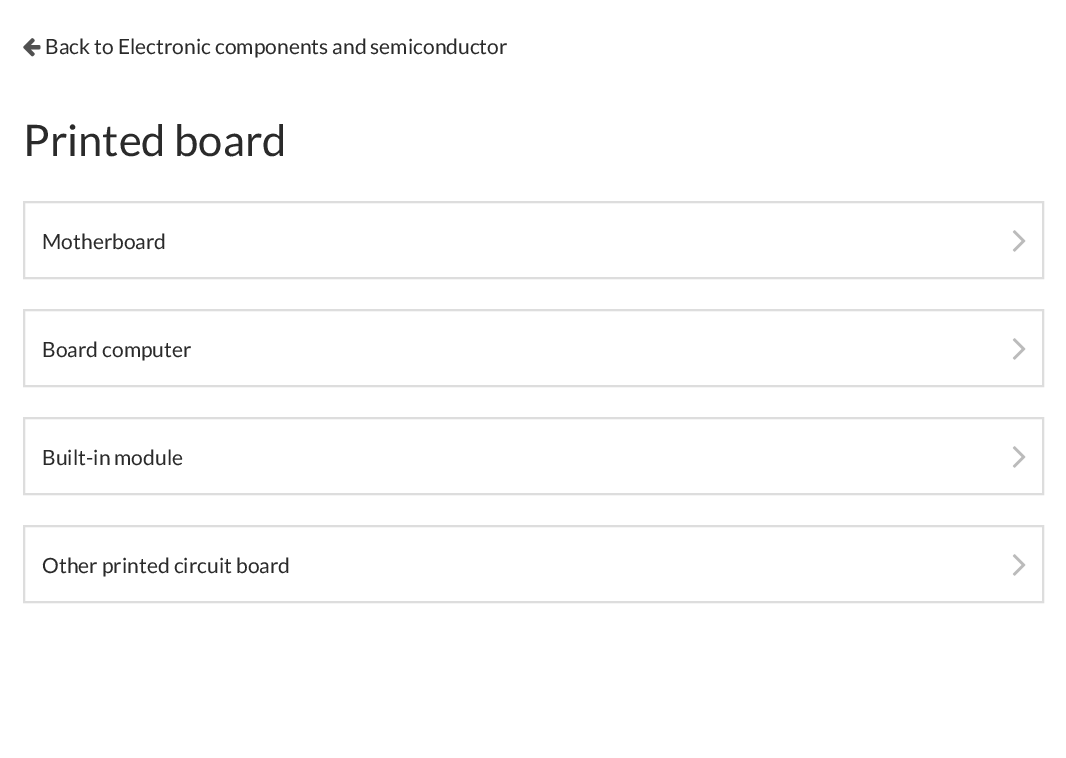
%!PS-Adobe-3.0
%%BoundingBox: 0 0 1066 758
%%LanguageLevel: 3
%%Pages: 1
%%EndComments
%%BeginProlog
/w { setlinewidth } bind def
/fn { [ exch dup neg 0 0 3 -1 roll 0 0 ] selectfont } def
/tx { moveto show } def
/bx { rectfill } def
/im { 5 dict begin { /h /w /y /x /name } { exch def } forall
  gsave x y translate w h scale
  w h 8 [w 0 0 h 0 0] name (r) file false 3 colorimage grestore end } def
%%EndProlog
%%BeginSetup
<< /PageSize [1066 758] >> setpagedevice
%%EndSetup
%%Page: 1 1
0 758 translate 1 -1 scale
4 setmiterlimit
1 setgray
0 0 1066 758 bx
(image0.raw) 23 38 18 19 im
/Lato-Regular 21 fn
0.165 setgray
(Back to Electronic components and semiconductor) 45 54 tx
/Lato-Regular 43.5 fn
(Printed board) 23 156 tx
0.867 setgray
2 w
24 202 1019 76 rectstroke
/Lato-Regular 21 fn
0.165 setgray
(Motherboard) 42 249 tx
(image1.raw) 1012 230 14 22 im
0.867 setgray
24 310 1019 76 rectstroke
0.165 setgray
(Board computer) 42 357 tx
(image1.raw) 1012 338 14 22 im
0.867 setgray
24 418 1019 76 rectstroke
0.165 setgray
(Built-in module) 42 465 tx
(image1.raw) 1012 446 14 22 im
0.867 setgray
24 526 1019 76 rectstroke
0.165 setgray
(Other printed circuit board) 42 573 tx
(image1.raw) 1012 554 14 22 im
showpage
%%EOF
